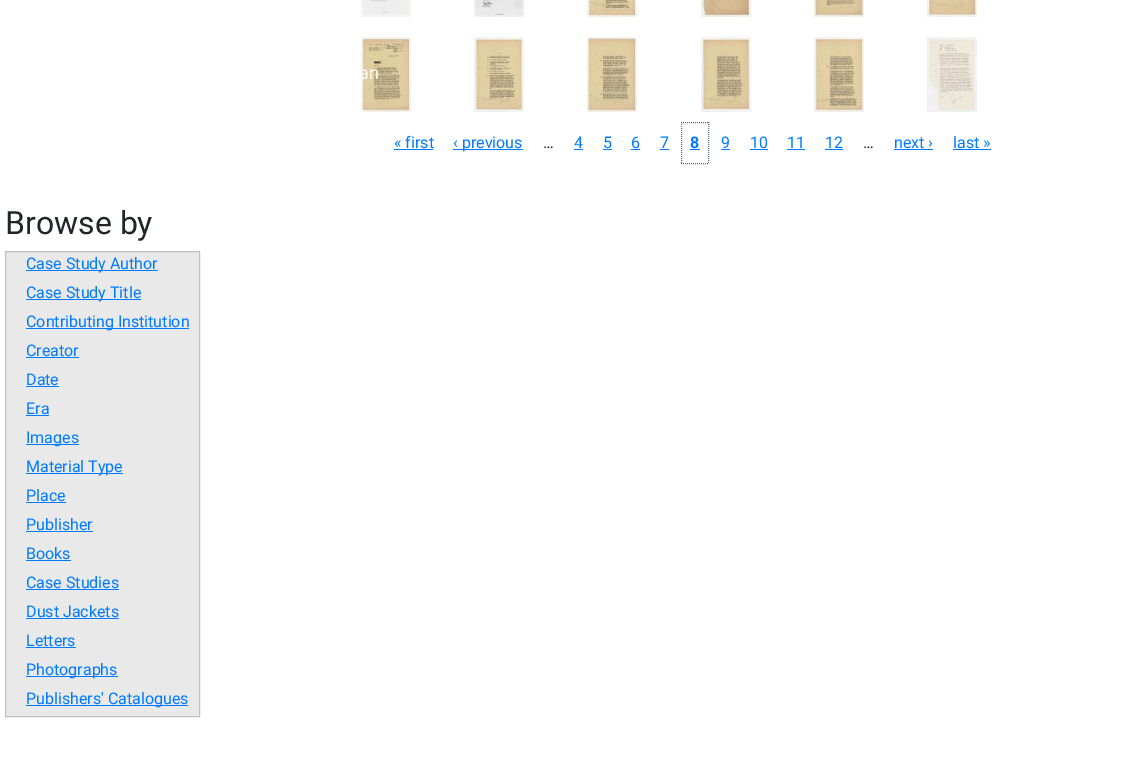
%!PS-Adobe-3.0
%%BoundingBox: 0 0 1143 782
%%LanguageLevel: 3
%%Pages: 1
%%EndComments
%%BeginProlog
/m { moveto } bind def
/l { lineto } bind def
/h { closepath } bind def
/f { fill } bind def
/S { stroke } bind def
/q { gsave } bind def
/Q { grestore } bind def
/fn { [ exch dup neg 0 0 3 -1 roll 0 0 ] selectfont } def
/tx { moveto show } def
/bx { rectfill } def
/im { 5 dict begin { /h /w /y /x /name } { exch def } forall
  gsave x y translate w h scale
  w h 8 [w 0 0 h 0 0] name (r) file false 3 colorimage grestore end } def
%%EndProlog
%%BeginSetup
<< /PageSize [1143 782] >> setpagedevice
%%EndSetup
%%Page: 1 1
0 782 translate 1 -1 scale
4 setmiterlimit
1 setgray
0 0 1143 782 bx
(image6.raw) 361 37 50 75 im
/Roboto-Regular 18 fn
0.988 0.984 0.973 setrgbcolor
(an) 359 79 tx
(image0.raw) 361 0 50 17 im
(image1.raw) 474 0 50 17 im
(image2.raw) 587 0 50 17 im
(image3.raw) 701 0 50 17 im
(image4.raw) 814 0 50 17 im
(image5.raw) 927 0 50 17 im
(image7.raw) 474 37 50 75 im
(image8.raw) 587 37 50 75 im
(image9.raw) 701 37 50 75 im
(image10.raw) 814 37 50 75 im
(image11.raw) 927 37 50 75 im
/Roboto-Regular 16 fn
0 0.482 1 setrgbcolor
(« first) 394 148 tx
394 149 39 1 bx
453 149 70 1 bx
(‹ previous) 453 148 tx
0.129 0.145 0.161 setrgbcolor
(…) 543 148 tx
0 0.482 1 setrgbcolor
(4) 574 148 tx
574 149 9 1 bx
(5) 603 148 tx
603 149 9 1 bx
(6) 631 148 tx
631 149 9 1 bx
(7) 660 148 tx
660 149 9 1 bx
0.369 0.416 0.443 setrgbcolor
[1 1] 0 setdash
681 122.5 m 709 122.5 l 708.5 122 m 708.5 164 l 681 163.5 m 709 163.5 l 681.5 122 m 681.5 164 l S
/Roboto-Bold 16 fn
0 0.482 1 setrgbcolor
(8) 690 148 tx
690 149 10 1 bx
/Roboto-Regular 16 fn
(9) 721 148 tx
721 149 9 1 bx
(10) 750 148 tx
750 149 18 1 bx
(11) 787 148 tx
787 149 18 1 bx
(12) 825 148 tx
825 149 18 1 bx
0.129 0.145 0.161 setrgbcolor
(…) 863 148 tx
0 0.482 1 setrgbcolor
(next ›) 894 148 tx
894 149 39 1 bx
(last ») 953 148 tx
953 149 38 1 bx
/Roboto-Regular 32 fn
0.129 0.145 0.161 setrgbcolor
(Browse by) 5 234 tx
0.914 setgray
5.5 251.5 m 199.5 251.5 l 199.5 716.5 l 5.5 716.5 l h q f Q
0.753 setgray
[] 0 setdash
S
0 0.482 1 setrgbcolor
26 270 132 1 bx
/Roboto-Regular 16 fn
(Case Study Author) 26 269 tx
26 299 115 1 bx
(Case Study Title) 26 298 tx
26 328 163 1 bx
(Contributing Institution) 26 327 tx
(Creator) 26 356 tx
26 357 53 1 bx
(Date) 26 385 tx
26 386 33 1 bx
(Era) 26 414 tx
26 415 23 1 bx
26 444 53 1 bx
(Images) 26 443 tx
26 473 97 1 bx
(Material Type) 26 472 tx
(Place) 26 501 tx
26 502 40 1 bx
(Publisher) 26 530 tx
26 531 67 1 bx
(Books) 26 559 tx
26 560 45 1 bx
(Case Studies) 26 588 tx
26 589 93 1 bx
(Dust Jackets) 26 617 tx
26 618 93 1 bx
(Letters) 26 646 tx
26 647 50 1 bx
26 676 92 1 bx
(Photographs) 26 675 tx
26 705 162 1 bx
(Publishers' Catalogues) 26 704 tx
showpage
%%EOF
